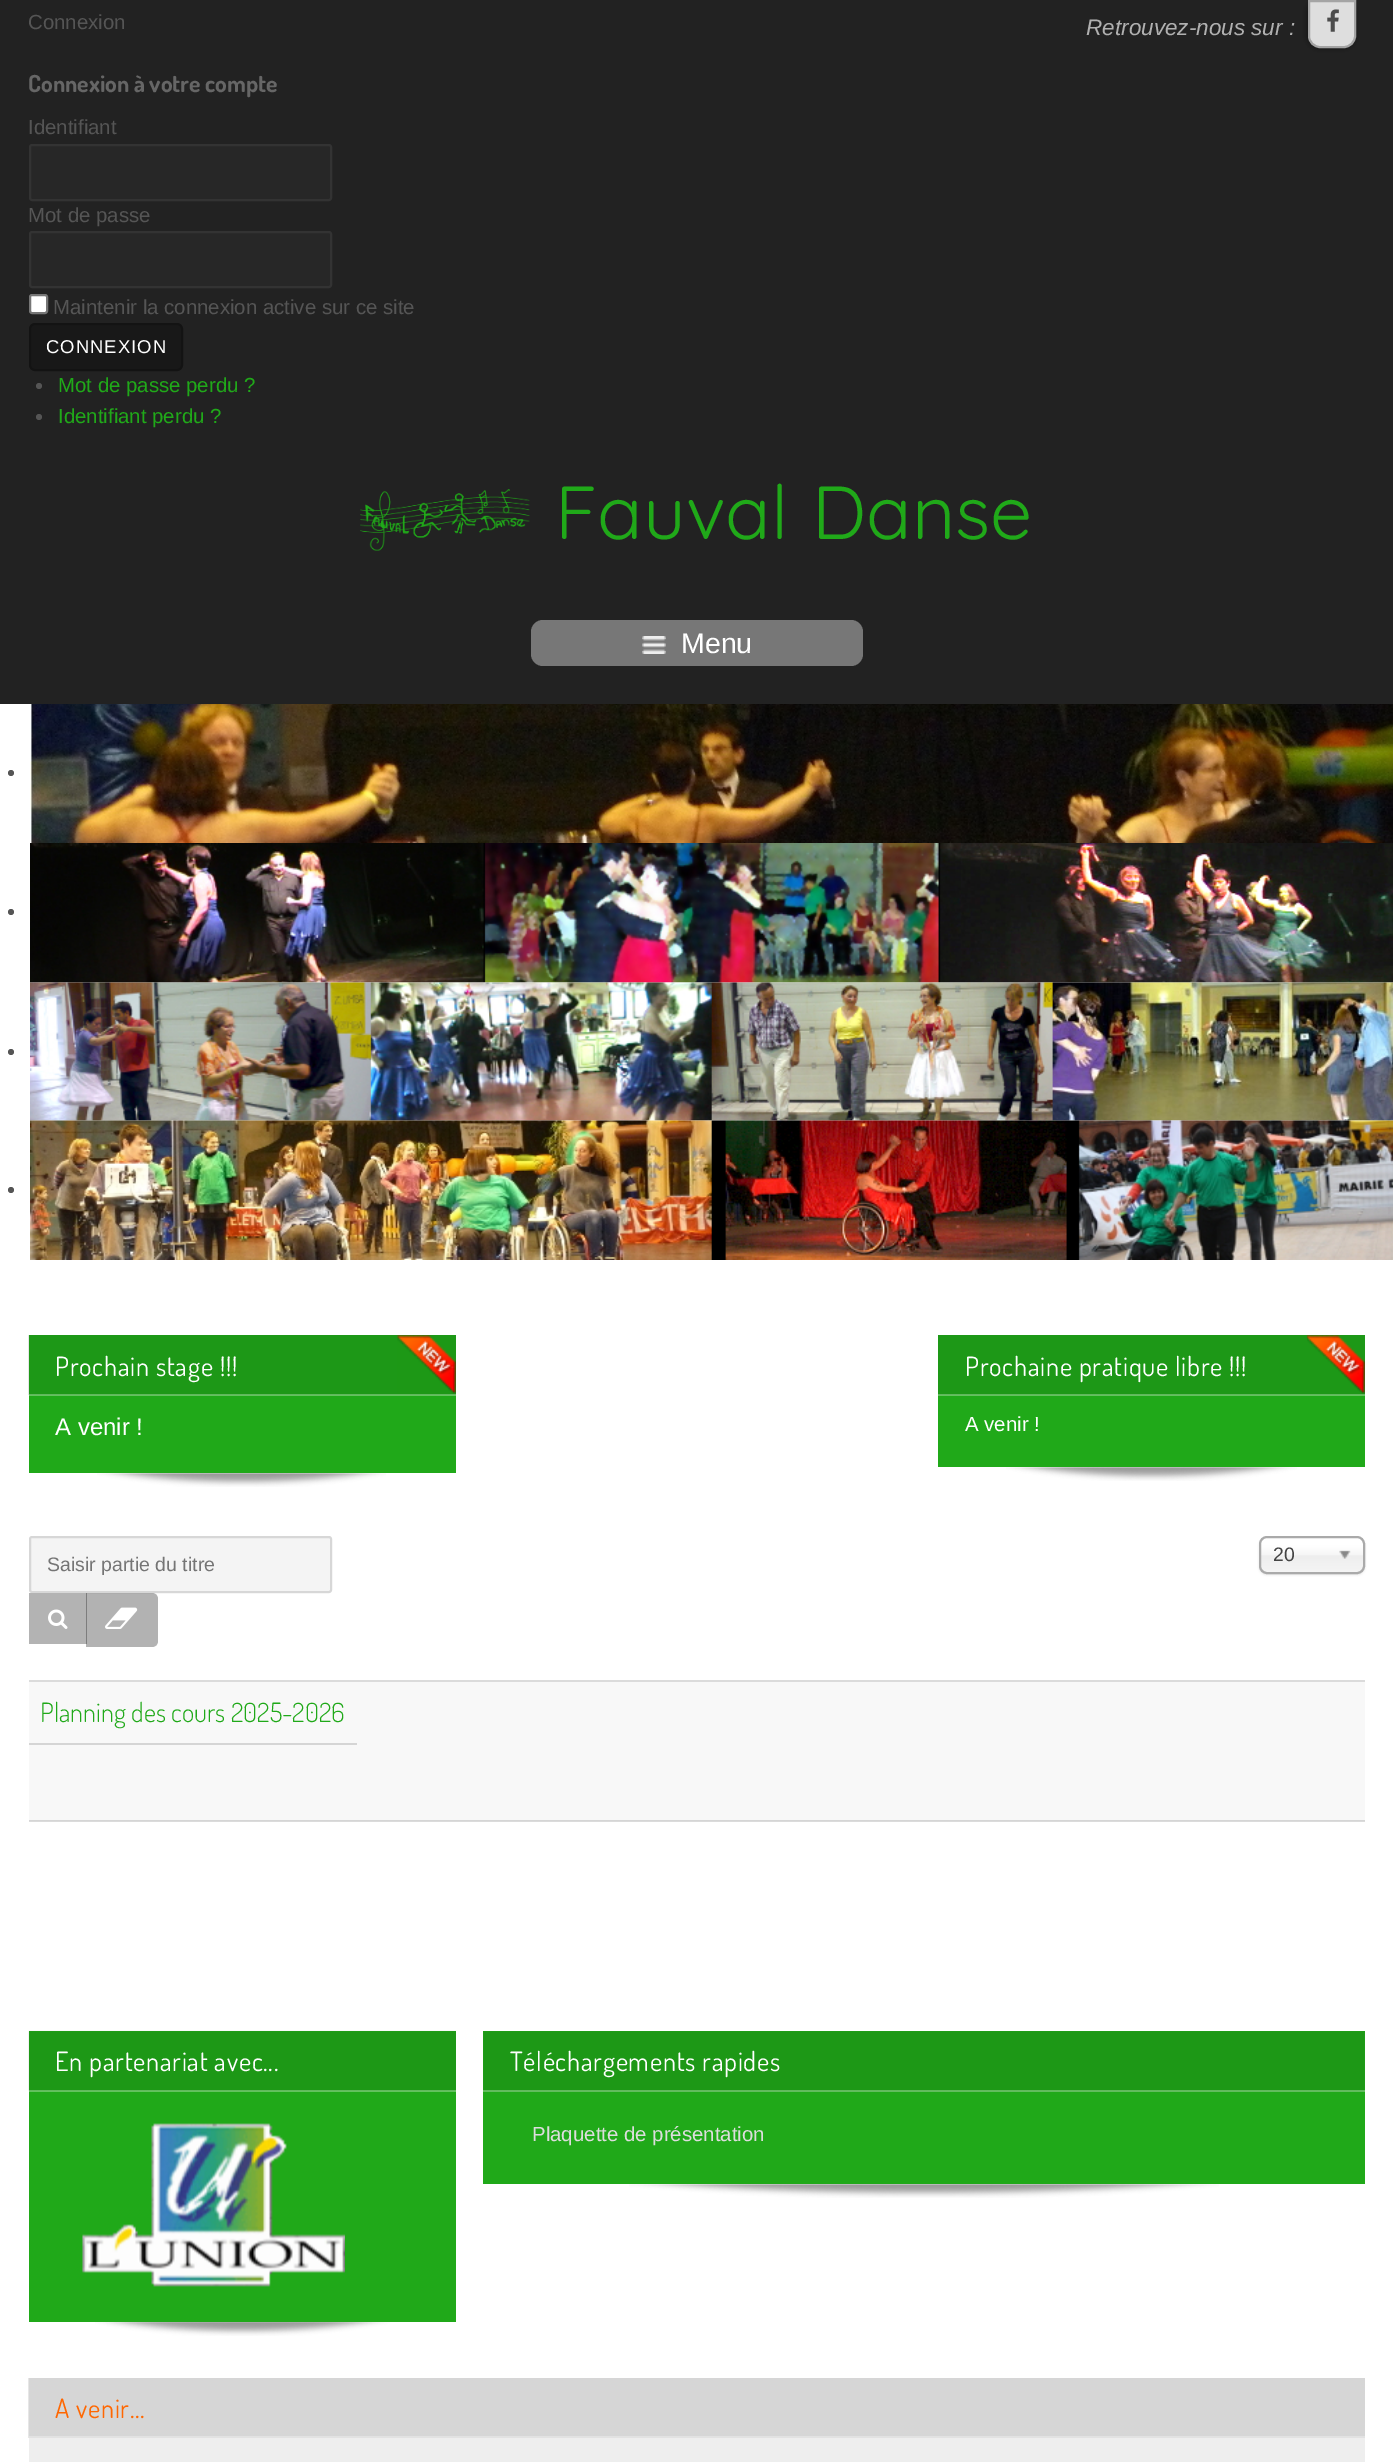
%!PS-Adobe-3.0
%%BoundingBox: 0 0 1393 2462
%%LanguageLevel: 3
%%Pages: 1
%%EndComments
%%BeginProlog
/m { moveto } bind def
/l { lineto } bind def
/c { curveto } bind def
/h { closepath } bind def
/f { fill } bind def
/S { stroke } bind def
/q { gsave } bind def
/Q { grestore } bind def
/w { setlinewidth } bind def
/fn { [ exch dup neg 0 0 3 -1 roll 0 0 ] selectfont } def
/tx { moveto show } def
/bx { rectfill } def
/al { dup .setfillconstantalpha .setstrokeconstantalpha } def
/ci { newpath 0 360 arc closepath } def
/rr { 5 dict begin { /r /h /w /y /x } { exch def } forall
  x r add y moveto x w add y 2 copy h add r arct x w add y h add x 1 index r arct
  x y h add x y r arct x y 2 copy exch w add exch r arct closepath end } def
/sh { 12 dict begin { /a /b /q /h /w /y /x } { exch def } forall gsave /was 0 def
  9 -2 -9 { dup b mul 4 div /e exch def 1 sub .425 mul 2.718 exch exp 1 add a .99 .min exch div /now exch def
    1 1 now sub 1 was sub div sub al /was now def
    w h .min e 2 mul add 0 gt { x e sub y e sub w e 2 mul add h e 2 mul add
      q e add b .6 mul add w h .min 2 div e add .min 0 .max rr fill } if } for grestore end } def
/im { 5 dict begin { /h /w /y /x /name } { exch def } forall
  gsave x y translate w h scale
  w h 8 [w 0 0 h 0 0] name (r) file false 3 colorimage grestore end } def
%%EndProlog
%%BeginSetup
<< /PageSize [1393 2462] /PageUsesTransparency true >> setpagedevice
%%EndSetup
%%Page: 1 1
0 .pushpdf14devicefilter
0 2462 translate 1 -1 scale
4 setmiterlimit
1 setgray
0 0 1393 2462 bx
0.902 setgray
28 2378 1 60 bx
0.859 setgray
29 1821 1336 1 bx
0.902 setgray
28 1335 1 60 bx
0.133 setgray
0 0 1393 704 bx
/LiberationSans-Regular 20.4 fn
0.333 setgray
(Connexion) 28 29 tx
/Dosis-Bold 23.5 fn
0.4 setgray
(Connexion à votre compte) 28 92 tx
/LiberationSans-Regular 20.4 fn
0.333 setgray
(Identifiant) 28 134 tx
0.153 setgray
30 145 301 55 2 rr q f Q
0.2 setgray
2 w
S
0.333 setgray
(Mot de passe) 28 222 tx
0.153 setgray
30 232 301 55 2 rr q f Q
0.2 setgray
S
1 setgray
30 295 17 18 2 rr q f Q
0.463 setgray
S
0.333 setgray
(Maintenir la connexion active sur ce site) 53 314 tx
0.094 setgray
30 324 152 46 5 rr q f Q
0.075 setgray
S
/LiberationSans-Regular 18.5 fn
1 setgray
46 353 m 1 0 (CONNEXION) ashow
0.333 setgray
39 386 3 ci f
/LiberationSans-Regular 20.4 fn
0.125 0.663 0.098 setrgbcolor
(Mot de passe perdu ?) 58 392 tx
0.333 setgray
39 417 3 ci f
0.125 0.663 0.098 setrgbcolor
(Identifiant perdu ?) 58 423 tx
/LiberationSans-Italic 22.5 fn
0.69 setgray
(Retrouvez-nous sur :) 1086 35 tx
0.02 setgray
1307 0 48 48 12 3 0.45 sh
0.871 setgray
1309 1 m 1355 1 l 1355 36 l 1355 42 1350 47 1344 47 c 1320 47 l 1314 47 1309 42 1309 36 c h q f Q
0.643 setgray
S
(image0.raw) 1327 9 12 23 im
(image1.raw) 360 489 170 62 im
/Quicksand-Regular 75 fn
0.125 0.663 0.098 setrgbcolor
555 539 m 4 0 32 (Fauval Danse) widthshow
0.467 setgray
531 620 332 46 12 rr f
(image2.raw) 642 636 24 18 im
/LiberationSans-Regular 28.5 fn
1 setgray
(Menu) 681 653 tx
0.333 setgray
11 773 3 ci f
(image3.raw) 30 704 1363 139 im
11 912 3 ci f
(image4.raw) 30 843 1363 140 im
11 1052 3 ci f
(image5.raw) 30 982 1363 139 im
11 1190 3 ci f
(image6.raw) 30 1120 1363 140 im
(image7.raw) 97 1473 289 14 im
0.125 0.663 0.098 setrgbcolor
29 1396 427 77 bx
0.388 0.765 0.369 setrgbcolor
29 1395 427 1 bx
0.114 0.596 0.09 setrgbcolor
29 1335 427 59 bx
0.38 0.718 0.365 setrgbcolor
29 1394 427 1 bx
/Dosis-Regular 26.5 fn
1 setgray
55 1376 m 0.75 0 (Prochain stage !!!) ashow
/LiberationSans-Regular 24 fn
(A venir !) 55 1435 tx
(image8.raw) 397 1335 59 59 im
(image9.raw) 1006 1467 291 14 im
0.125 0.663 0.098 setrgbcolor
938 1396 427 71 bx
0.388 0.765 0.369 setrgbcolor
938 1395 427 1 bx
0.114 0.596 0.09 setrgbcolor
938 1335 427 59 bx
0.38 0.718 0.365 setrgbcolor
938 1394 427 1 bx
/Dosis-Regular 26.5 fn
1 setgray
965 1376 m 0.75 0 (Prochaine pratique libre !!!) ashow
/LiberationSans-Regular 20.4 fn
(A venir !) 965 1431 tx
(image10.raw) 1307 1335 58 59 im
0 setgray
1259 1538 106 37 8 1 0.1 sh
q 1260 1538 104 34 6 rr clip newpath
<< /ShadingType 2 /ColorSpace /DeviceRGB /Coords [1312 1538 1312 1572] /Extend [true true] /Function << /FunctionType 3 /Domain [0 1] /Functions [<< /FunctionType 2 /Domain [0 1] /C0 [1 1 1] /C1 [1 1 1] /N 1 >> << /FunctionType 2 /Domain [0 1] /C0 [1 1 1] /C1 [0.965 0.965 0.965] /N 1 >> << /FunctionType 2 /Domain [0 1] /C0 [0.965 0.965 0.965] /C1 [0.933 0.933 0.933] /N 1 >> << /FunctionType 2 /Domain [0 1] /C0 [0.933 0.933 0.933] /C1 [0.957 0.957 0.957] /N 1 >>] /Bounds [0.2 0.5 0.52] /Encode [0 1 0 1 0 1 0 1] >> >> shfill Q
0.667 setgray
1260 1537 104 36 7 rr S
/LiberationSans-Regular 19.5 fn
0.267 setgray
(20) 1273 1561 tx
(image11.raw) 1339 1550 12 9 im
0.957 setgray
29 1536 303 57 3 rr f
0.2 al
0.392 setgray
30 1537 301 55 2 rr S
1 al
0.459 setgray
(Saisir partie du titre) 47 1571 tx
0.702 setgray
29 1593 58 51 bx
(image12.raw) 48 1609 20 20 im
0.3 al
0 setgray
86 1593 m 152 1593 l 155.5 1593 158 1595.5 158 1599 c 158 1641 l 158 1644.5 155.5 1647 152 1647 c 86 1647 l h f
1 al
(image13.raw) 105 1607 33 22 im
0.859 setgray
29 1680 1336 2 bx
0.973 setgray
29 1682 1336 138 bx
0.835 setgray
29 1820 1336 1 bx
29 1743 328 2 bx
/Dosis-Light 26.5 fn
0.125 0.663 0.098 setrgbcolor
(Planning des cours 2025-2026) 40 1722 tx
(image14.raw) 95 2322 295 14 im
29 2031 427 291 bx
(image15.raw) 28 2030 428 61 im
0.3 al
1 setgray
29 2090 427 2 bx
/Dosis-Regular 26.5 fn
1 al
55 2071 m 0.75 0 (En partenariat avec...) ashow
(image16.raw) 82 2123 263 164 im
(image17.raw) 629 2184 590 14 im
0.125 0.663 0.098 setrgbcolor
483 2031 882 153 bx
(image18.raw) 483 2031 882 61 im
0.3 al
1 setgray
483 2090 882 2 bx
1 al
510 2071 m 0.75 0 (Téléchargements rapides) ashow
/LiberationSans-Regular 20.4 fn
0.867 setgray
(Plaquette de présentation) 532 2141 tx
0.933 setgray
29 2438 1336 24 bx
0.839 setgray
29 2378 1336 58 bx
0.886 setgray
29 2436 1336 2 bx
/Dosis-Regular 26.5 fn
1 0.404 0.004 setrgbcolor
55 2418 m 0.75 0 (A venir...) ashow
.poppdf14devicefilter showpage
%%EOF
